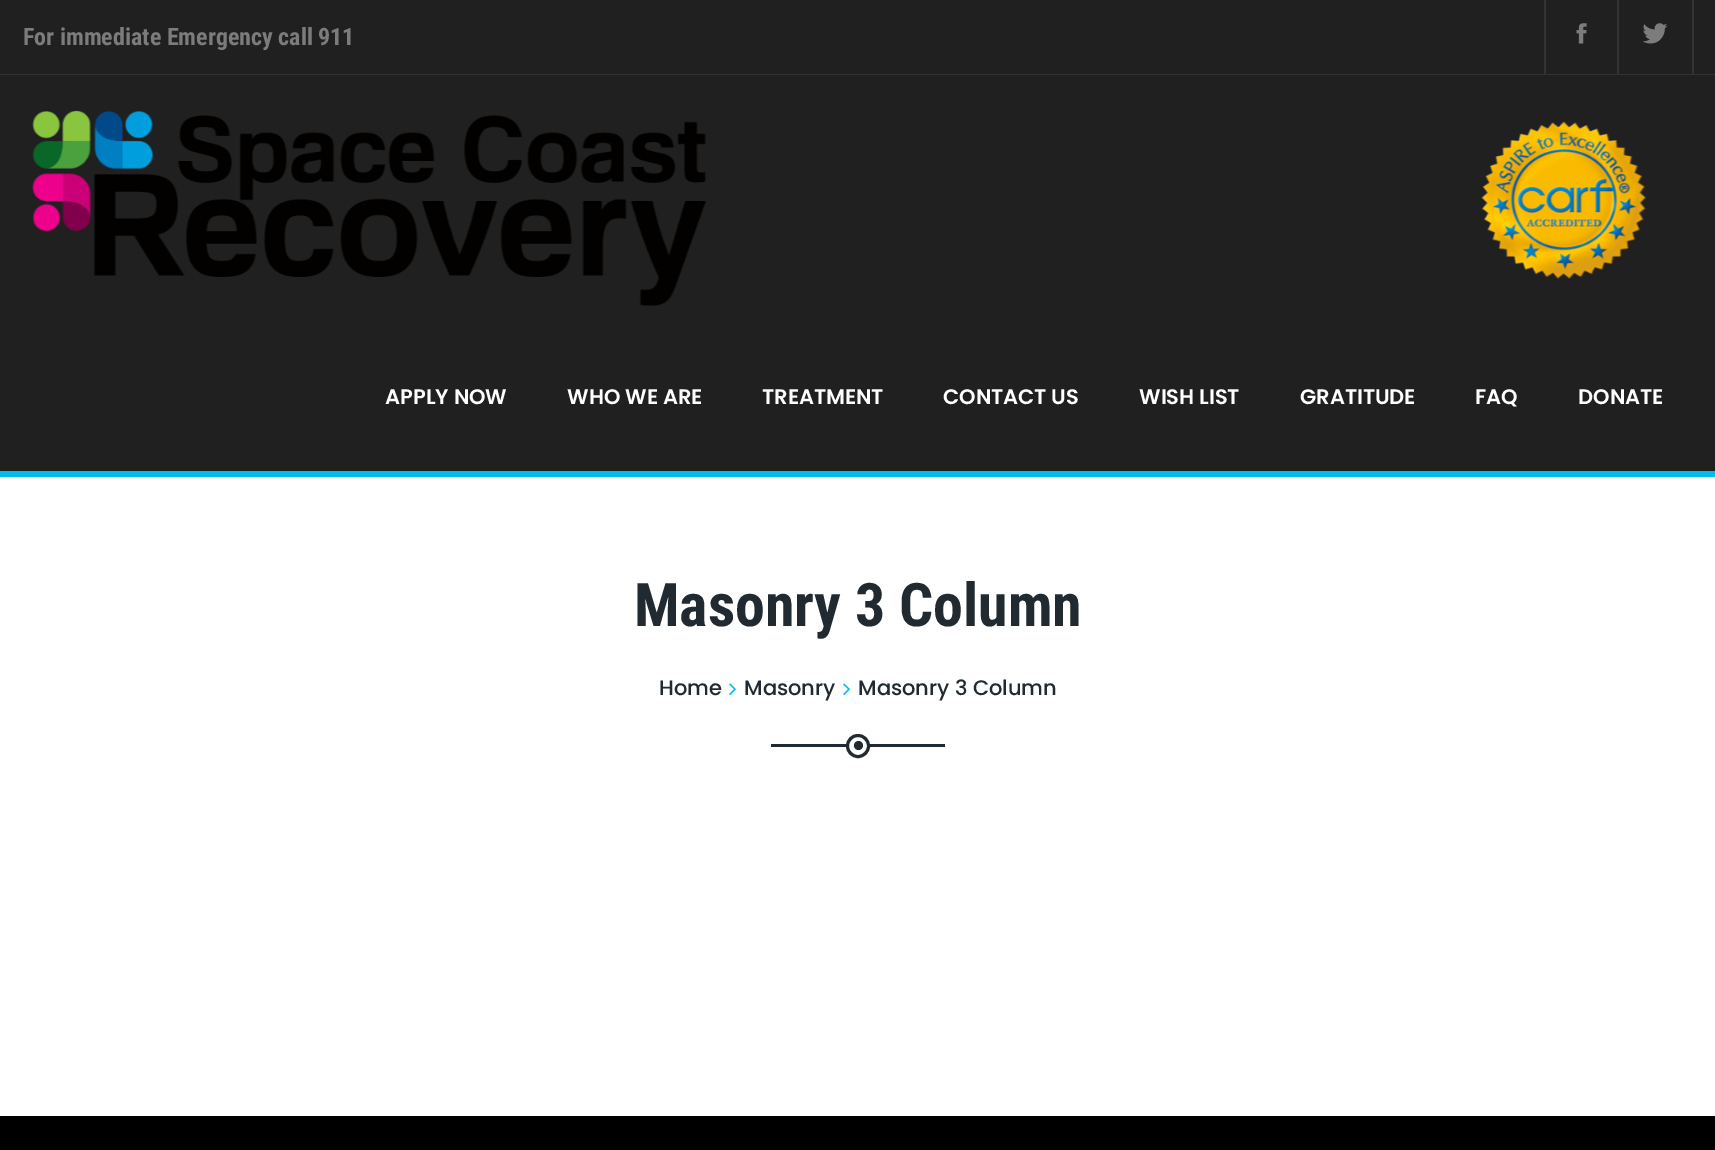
%!PS-Adobe-3.0
%%BoundingBox: 0 0 1715 1150
%%LanguageLevel: 3
%%Pages: 1
%%EndComments
%%BeginProlog
/f { fill } bind def
/S { stroke } bind def
/w { setlinewidth } bind def
/fn { [ exch dup neg 0 0 3 -1 roll 0 0 ] selectfont } def
/tx { moveto show } def
/bx { rectfill } def
/ci { newpath 0 360 arc closepath } def
/im { 5 dict begin { /h /w /y /x /name } { exch def } forall
  gsave x y translate w h scale
  w h 8 [w 0 0 h 0 0] name (r) file false 3 colorimage grestore end } def
%%EndProlog
%%BeginSetup
<< /PageSize [1715 1150] >> setpagedevice
%%EndSetup
%%Page: 1 1
0 1150 translate 1 -1 scale
4 setmiterlimit
1 setgray
0 0 1715 1150 bx
0.125 setgray
0 0 1715 74 bx
0.2 setgray
0 74 1715 1 bx
/RobotoCondensed-Bold 24 fn
0.486 setgray
(For immediate Emergency call 911) 23 45 tx
0.2 setgray
1617 0 2 75 bx
1544 0 2 75 bx
(image0.raw) 1576 23 11 21 im
1692 0 2 75 bx
(image1.raw) 1642 23 26 21 im
0.125 setgray
0 75 1715 396 bx
0 0.733 0.922 setrgbcolor
0 471 1715 6 bx
(image2.raw) 32 110 1615 196 im
/Poppins-SemiBold 21 fn
1 setgray
(APPLY NOW) 385 404 tx
(WHO WE ARE) 567 404 tx
(TREATMENT) 762 404 tx
(CONTACT US) 943 404 tx
(WISH LIST) 1139 404 tx
(GRATITUDE) 1300 404 tx
(FAQ) 1475 404 tx
(DONATE) 1578 404 tx
/RobotoCondensed-Bold 60 fn
0.125 0.165 0.188 setrgbcolor
(Masonry 3 Column) 634 626 tx
/Poppins-Medium 21 fn
(Home) 659 695 tx
(image3.raw) 729 683 7 12 im
(Masonry) 744 695 tx
(image3.raw) 843 683 7 12 im
(Masonry 3 Column) 858 695 tx
3 w
858 746 10.5 ci S
771 744 75 3 bx
858.5 745.5 4.5 ci f
870 744 75 3 bx
0 setgray
0 1116 1715 34 bx
showpage
%%EOF
